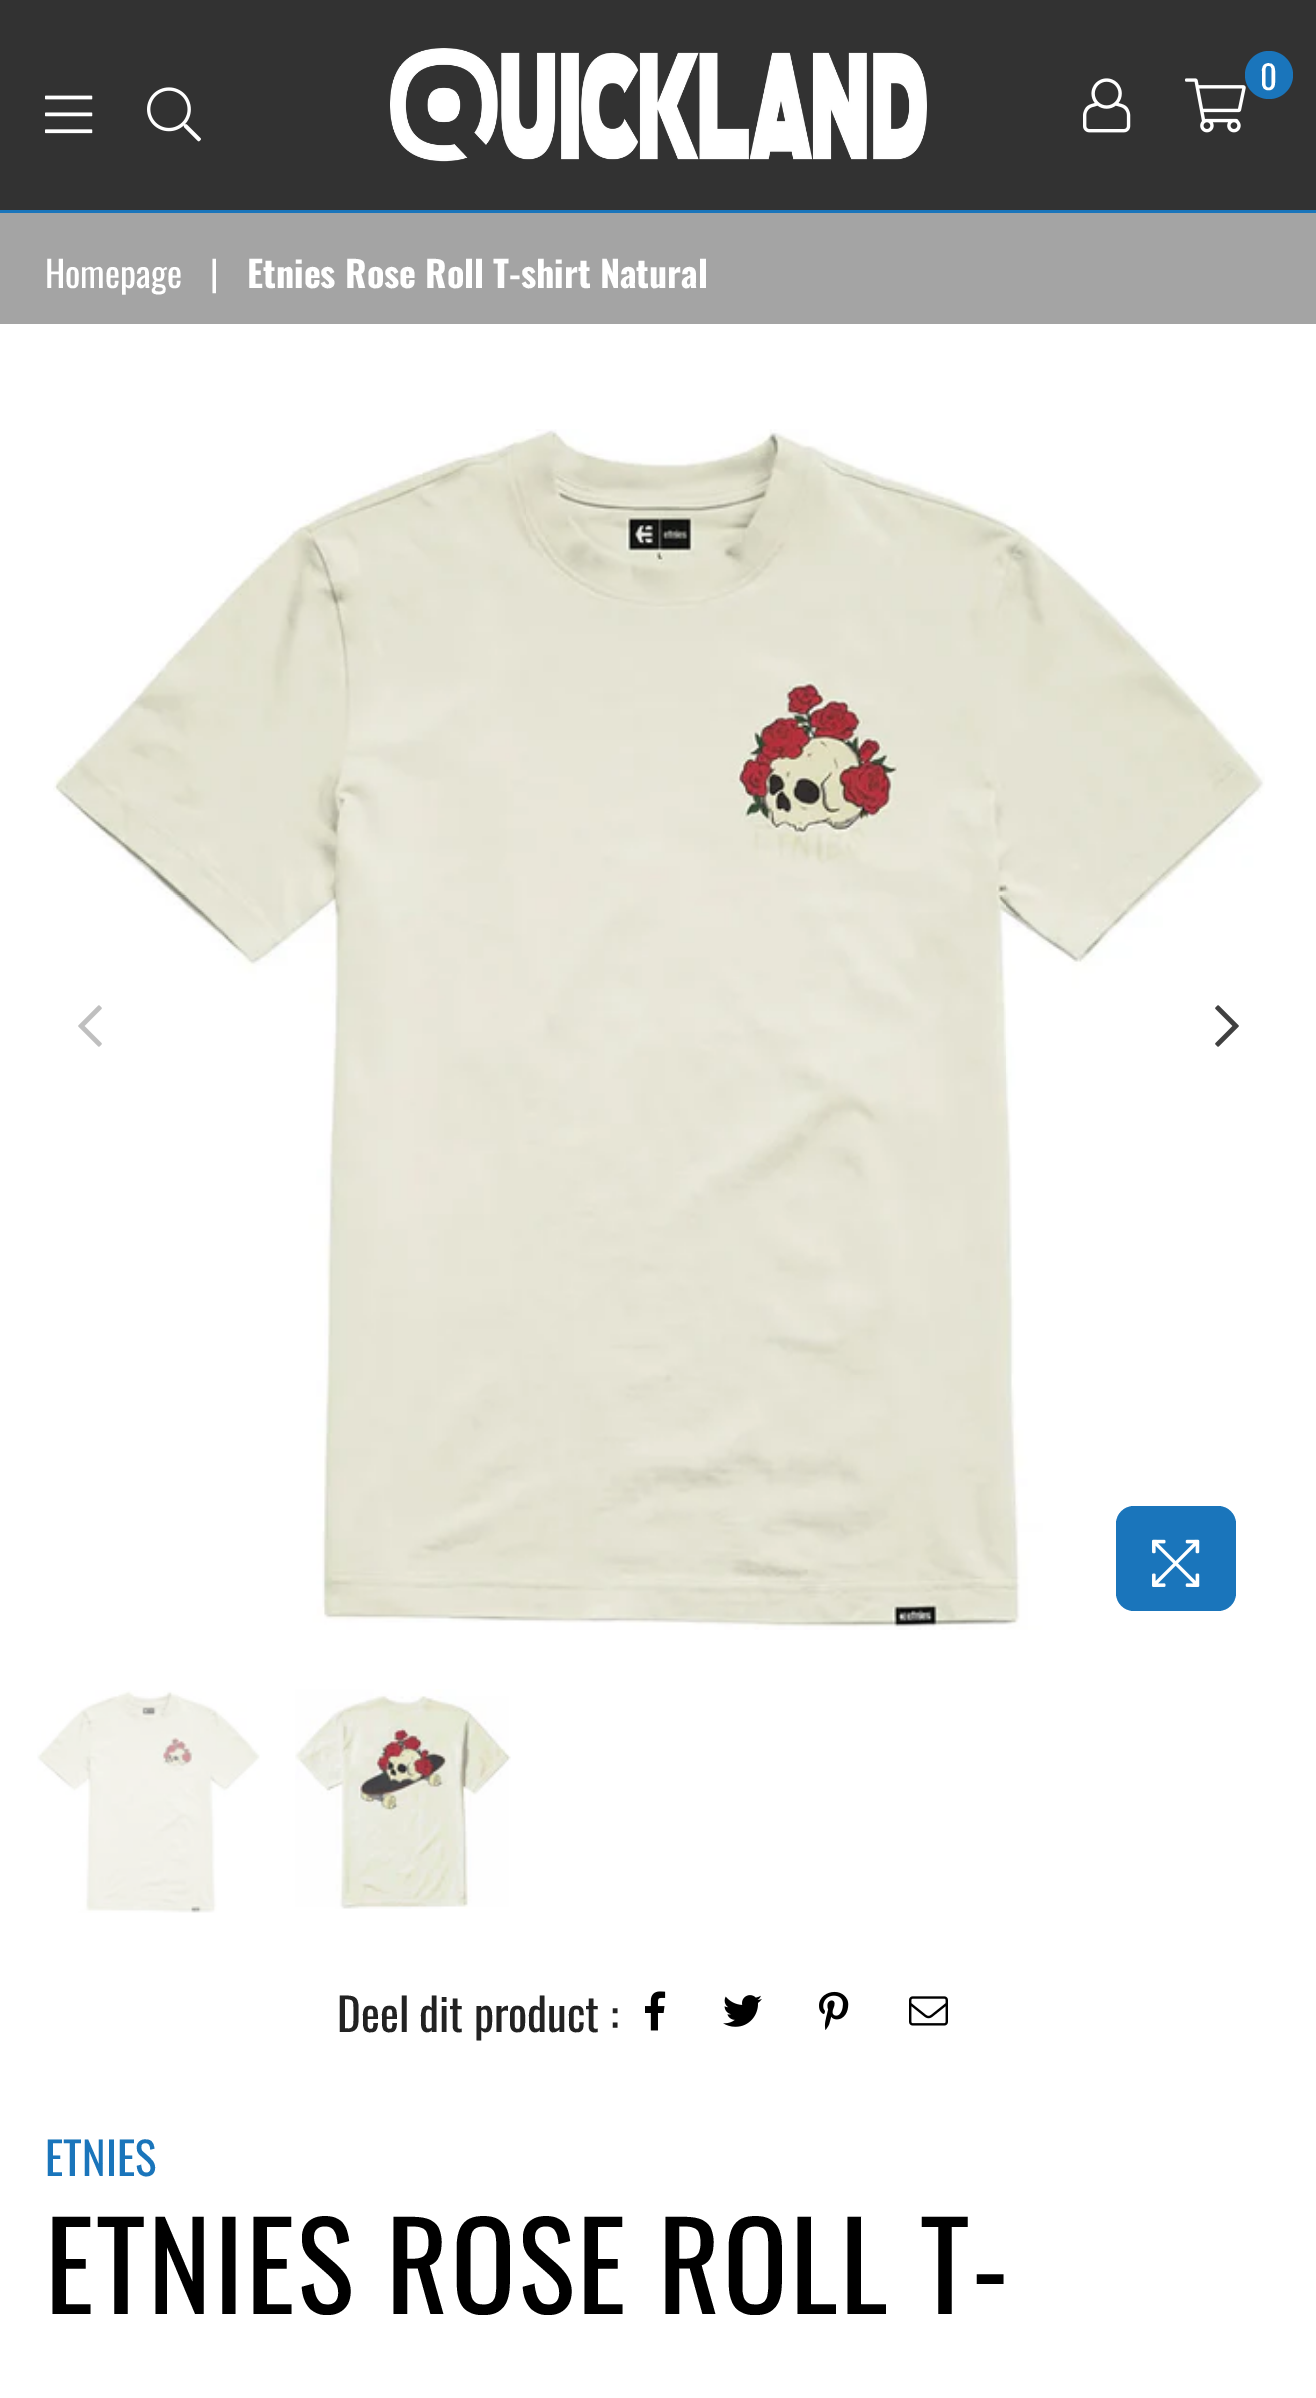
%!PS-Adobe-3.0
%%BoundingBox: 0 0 1316 2398
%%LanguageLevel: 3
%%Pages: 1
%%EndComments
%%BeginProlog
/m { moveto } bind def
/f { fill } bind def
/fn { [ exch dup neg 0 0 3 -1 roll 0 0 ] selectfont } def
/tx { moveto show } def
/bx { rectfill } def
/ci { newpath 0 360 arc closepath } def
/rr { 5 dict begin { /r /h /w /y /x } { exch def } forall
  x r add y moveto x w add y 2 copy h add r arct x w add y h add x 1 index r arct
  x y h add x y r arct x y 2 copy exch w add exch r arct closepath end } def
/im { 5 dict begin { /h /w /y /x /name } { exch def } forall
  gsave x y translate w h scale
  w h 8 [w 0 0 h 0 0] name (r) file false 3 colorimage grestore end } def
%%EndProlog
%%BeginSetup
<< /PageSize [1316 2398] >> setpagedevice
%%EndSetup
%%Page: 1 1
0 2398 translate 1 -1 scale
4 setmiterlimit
1 setgray
0 0 1316 2398 bx
0.196 setgray
0 0 1316 210 bx
0.102 0.459 0.733 setrgbcolor
0 210 1316 3 bx
(image0.raw) 390 48 537 114 im
(image1.raw) 1083 78 48 55 im
(image2.raw) 1185 78 61 55 im
1269 75 24 ci f
/Oswald-Regular 33 fn
1 setgray
(0) 1260 90 tx
(image3.raw) 45 95 48 39 im
(image4.raw) 147 87 54 55 im
0.643 setgray
0 213 1316 111 bx
/Oswald-Regular 36 fn
1 setgray
(Homepage) 45 288 tx
(|) 210 288 tx
/Oswald-Bold 36 fn
(Etnies Rose Roll T-shirt Natural) 247 288 tx
(image5.raw) 53 429 1212 1201 im
(image6.raw) 78 1005 24 42 im
(image7.raw) 1215 1005 24 42 im
0.102 0.459 0.733 setrgbcolor
1116 1506 120 105 18 rr f
(image8.raw) 1152 1539 48 48 im
(image9.raw) 37 1690 223 223 im
(image10.raw) 295 1689 216 220 im
/Oswald-Regular 45 fn
0.133 setgray
(Deel dit product :) 337 2032 tx
(image11.raw) 645 1991 21 40 im
(image12.raw) 723 1995 39 32 im
(image13.raw) 819 1991 30 39 im
(image14.raw) 909 1996 39 30 im
0.102 0.459 0.733 setrgbcolor
(ETNIES) 45 2176 tx
/Oswald-Regular 120 fn
0 setgray
45 2314 m 2.4 0 (ETNIES ROSE ROLL T-) ashow
showpage
%%EOF
